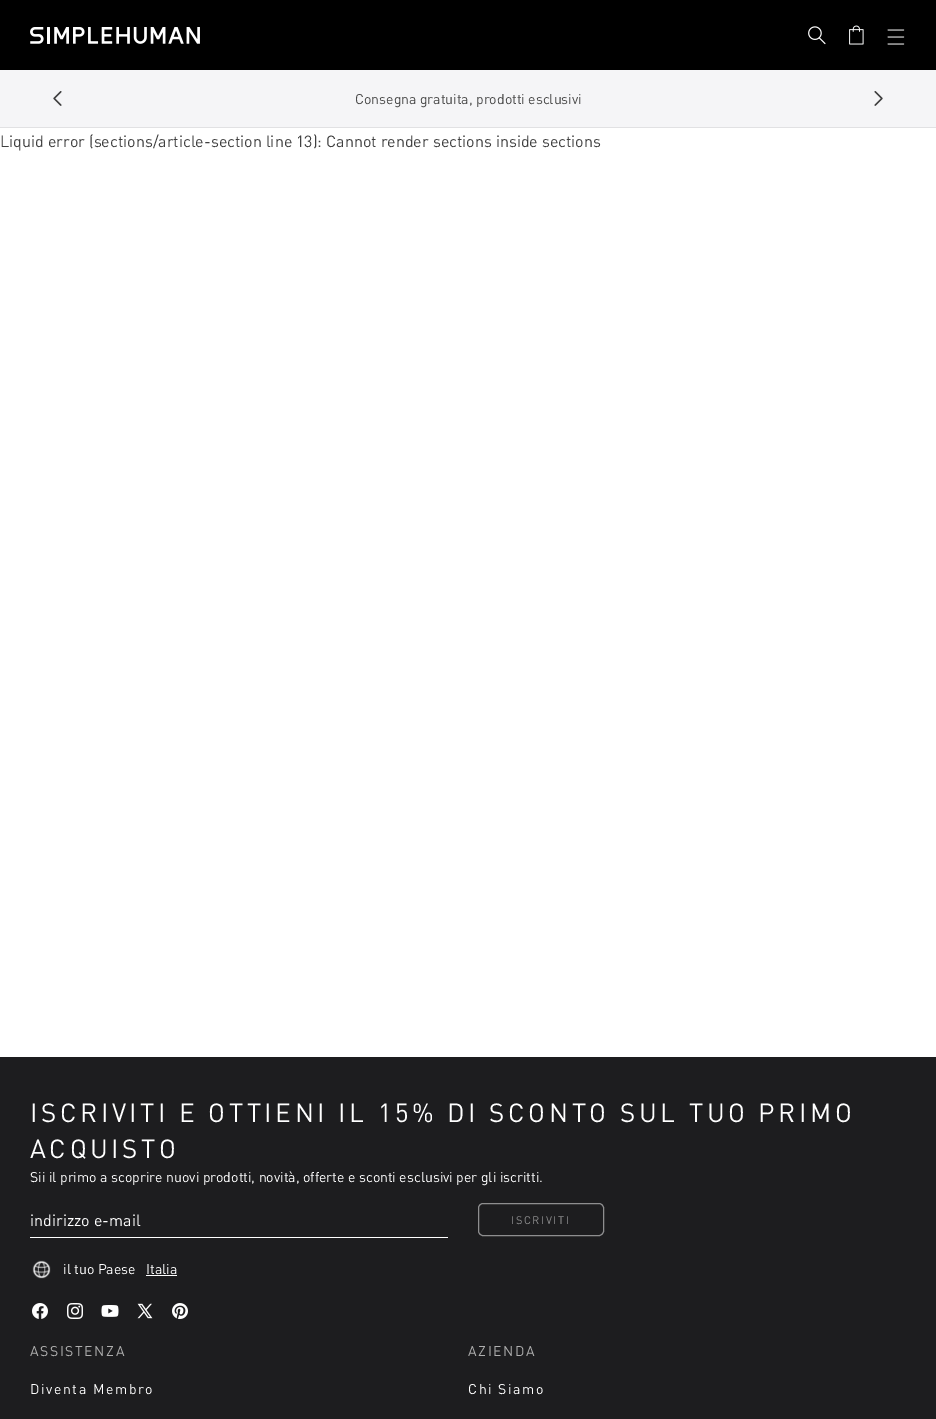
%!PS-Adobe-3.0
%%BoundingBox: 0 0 936 1419
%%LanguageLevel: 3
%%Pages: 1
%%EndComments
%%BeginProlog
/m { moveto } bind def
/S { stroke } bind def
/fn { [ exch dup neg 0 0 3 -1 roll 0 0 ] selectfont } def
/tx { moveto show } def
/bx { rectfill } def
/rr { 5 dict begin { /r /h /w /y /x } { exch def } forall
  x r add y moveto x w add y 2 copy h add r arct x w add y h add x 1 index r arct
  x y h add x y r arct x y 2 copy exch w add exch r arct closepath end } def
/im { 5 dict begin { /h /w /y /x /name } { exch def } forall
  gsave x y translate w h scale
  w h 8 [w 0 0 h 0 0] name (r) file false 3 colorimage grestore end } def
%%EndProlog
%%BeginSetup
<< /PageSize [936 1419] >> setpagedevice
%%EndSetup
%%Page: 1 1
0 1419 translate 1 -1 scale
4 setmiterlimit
1 setgray
0 0 936 1419 bx
0 setgray
0 0 936 70 bx
(image0.raw) 30 27 170 17 im
(image1.raw) 808 26 18 19 im
(image2.raw) 849 25 15 20 im
(image3.raw) 887 29 18 16 im
0.961 0.961 0.969 setrgbcolor
0 70 936 57 bx
0.882 0.882 0.89 setrgbcolor
0 127 936 1 bx
(image4.raw) 53 91 9 15 im
/DIN-Regular 14 fn
0.29 setgray
(Consegna gratuita, prodotti esclusivi) 355 104 tx
(image5.raw) 874 91 9 15 im
/DIN-Regular 16 fn
0.251 setgray
(Liquid error \(sections/article-section line 13\): Cannot render sections inside sections) 0 147 tx
0.114 0.114 0.122 setrgbcolor
0 1057 936 362 bx
/DIN-Regular 26 fn
1 setgray
30 1122 m 3.6 0 (ISCRIVITI E OTTIENI IL 15% DI SCONTO SUL TUO PRIMO) ashow
30 1158 m 3.6 0 (ACQUISTO) ashow
/DIN-Regular 14 fn
(Sii il primo a scoprire nuovi prodotti, novità, offerte e sconti esclusivi per gli iscritti.) 30 1182 tx
30 1237 418 1 bx
/DIN-Regular 16 fn
(indirizzo e-mail) 30 1226 tx
0.557 0.557 0.561 setrgbcolor
478.5 1203.5 125 32 4.5 rr S
/DIN-Regular 11 fn
511 1224 m 1.6 0 (ISCRIVITI) ashow
(image6.raw) 32 1260 19 19 im
/DIN-Regular 14 fn
1 setgray
(il tuo Paese) 63 1274 tx
(Italia) 146 1274 tx
146 1275 31 1 bx
(image7.raw) 32 1303 16 16 im
(image8.raw) 67 1303 16 16 im
(image9.raw) 101 1305 18 12 im
(image10.raw) 137 1303 16 16 im
(image11.raw) 172 1303 16 16 im
0.686 setgray
30 1356 m 1.6 0 (ASSISTENZA) ashow
1 setgray
30 1394 m 1.6 0 (Diventa Membro) ashow
0.686 setgray
468 1356 m 1.6 0 (AZIENDA) ashow
1 setgray
468 1394 m 1.6 0 (Chi Siamo) ashow
showpage
%%EOF
